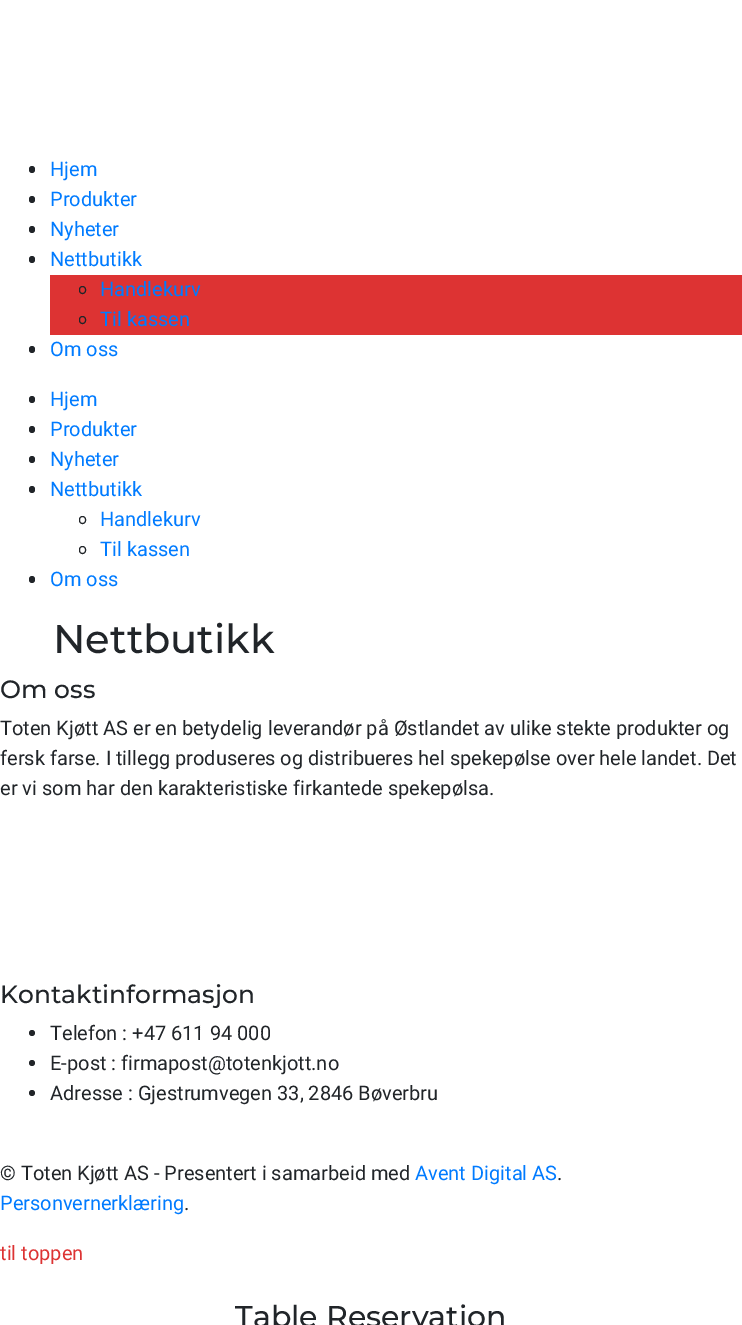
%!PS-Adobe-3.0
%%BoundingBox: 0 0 742 1325
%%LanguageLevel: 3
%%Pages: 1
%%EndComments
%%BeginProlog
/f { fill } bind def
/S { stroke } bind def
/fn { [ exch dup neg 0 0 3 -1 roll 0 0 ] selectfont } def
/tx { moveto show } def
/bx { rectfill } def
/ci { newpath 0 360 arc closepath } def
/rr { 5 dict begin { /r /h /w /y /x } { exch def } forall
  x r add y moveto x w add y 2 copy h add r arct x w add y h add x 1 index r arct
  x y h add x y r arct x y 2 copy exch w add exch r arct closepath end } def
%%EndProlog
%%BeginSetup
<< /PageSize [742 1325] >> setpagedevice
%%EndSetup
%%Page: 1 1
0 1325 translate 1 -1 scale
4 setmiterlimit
1 setgray
0 0 742 1325 bx
0.129 0.145 0.161 setrgbcolor
29 166 6 7 3 rr f
/Roboto-Regular 20 fn
0 0.482 1 setrgbcolor
(Hjem) 50 176 tx
0.129 0.145 0.161 setrgbcolor
29 196 6 7 3 rr f
0 0.482 1 setrgbcolor
(Produkter) 50 206 tx
0.129 0.145 0.161 setrgbcolor
29 226 6 7 3 rr f
0 0.482 1 setrgbcolor
(Nyheter) 50 236 tx
0.129 0.145 0.161 setrgbcolor
29 256 6 7 3 rr f
0 0.482 1 setrgbcolor
(Nettbutikk) 50 266 tx
0.867 0.2 0.2 setrgbcolor
50 275 692 60 bx
0.129 0.145 0.161 setrgbcolor
79.5 286.5 6 7 3 rr S
0 0.482 1 setrgbcolor
(Handlekurv) 100 296 tx
0.129 0.145 0.161 setrgbcolor
79.5 316.5 6 7 3 rr S
0 0.482 1 setrgbcolor
(Til kassen) 100 326 tx
0.129 0.145 0.161 setrgbcolor
29 346 6 7 3 rr f
0 0.482 1 setrgbcolor
(Om oss) 50 356 tx
0.129 0.145 0.161 setrgbcolor
29 396 6 7 3 rr f
0 0.482 1 setrgbcolor
(Hjem) 50 406 tx
0.129 0.145 0.161 setrgbcolor
29 426 6 7 3 rr f
0 0.482 1 setrgbcolor
(Produkter) 50 436 tx
0.129 0.145 0.161 setrgbcolor
29 456 6 7 3 rr f
0 0.482 1 setrgbcolor
(Nyheter) 50 466 tx
0.129 0.145 0.161 setrgbcolor
29 486 6 7 3 rr f
0 0.482 1 setrgbcolor
(Nettbutikk) 50 496 tx
0.129 0.145 0.161 setrgbcolor
79.5 516.5 6 7 3 rr S
0 0.482 1 setrgbcolor
(Handlekurv) 100 526 tx
0.129 0.145 0.161 setrgbcolor
79.5 546.5 6 7 3 rr S
0 0.482 1 setrgbcolor
(Til kassen) 100 556 tx
0.129 0.145 0.161 setrgbcolor
29 576 6 7 3 rr f
0 0.482 1 setrgbcolor
(Om oss) 50 586 tx
/Montserrat-Medium 40 fn
0.129 0.145 0.161 setrgbcolor
(Nettbutikk) 53 653 tx
/Montserrat-Medium 25 fn
(Om oss) 0 698 tx
/Roboto-Regular 20 fn
(Toten Kjøtt AS er en betydelig leverandør på Østlandet av ulike stekte produkter og) 0 735 tx
(fersk farse. I tillegg produseres og distribueres hel spekepølse over hele landet. Det) 0 765 tx
(er vi som har den karakteristiske firkantede spekepølsa.) 0 795 tx
/Montserrat-Medium 25 fn
(Kontaktinformasjon) 0 1003 tx
32 1033 3 ci f
/Roboto-Regular 20 fn
(Telefon : +47 611 94 000) 50 1040 tx
32 1063 3 ci f
(E-post : firmapost@totenkjott.no) 50 1070 tx
32 1093 3 ci f
(Adresse : Gjestrumvegen 33, 2846 Bøverbru) 50 1100 tx
(© Toten Kjøtt AS - Presentert i samarbeid med) 0 1180 tx
0 0.482 1 setrgbcolor
(Avent Digital AS) 415 1180 tx
0.129 0.145 0.161 setrgbcolor
(.) 557 1180 tx
0 0.482 1 setrgbcolor
(Personvernerklæring) 0 1210 tx
0.129 0.145 0.161 setrgbcolor
(.) 184 1210 tx
0.867 0.2 0.2 setrgbcolor
(til toppen) 0 1260 tx
/Montserrat-Medium 30 fn
0.129 0.145 0.161 setrgbcolor
(Table Reservation) 235 1327 tx
showpage
%%EOF
